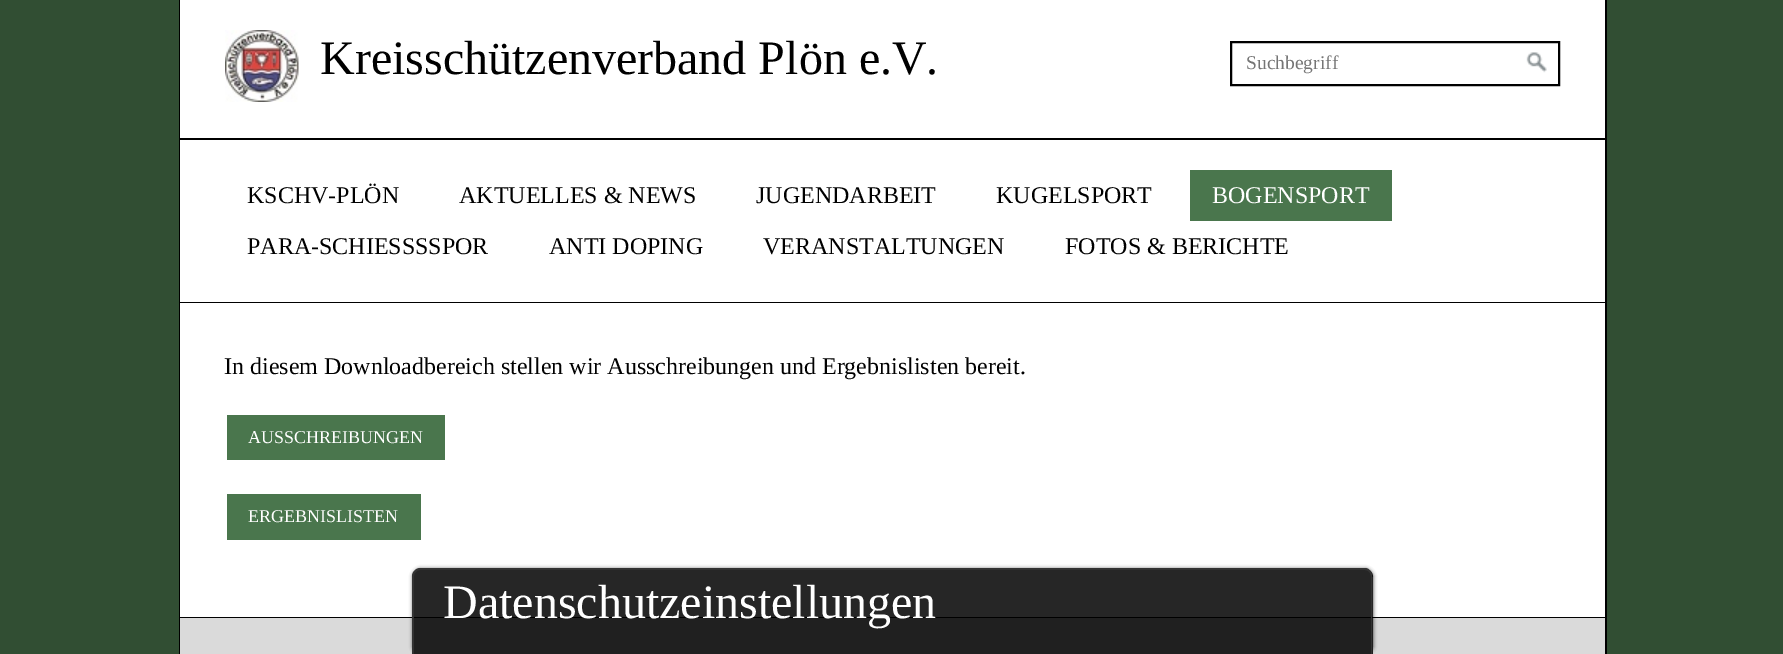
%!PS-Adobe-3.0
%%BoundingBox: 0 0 1783 654
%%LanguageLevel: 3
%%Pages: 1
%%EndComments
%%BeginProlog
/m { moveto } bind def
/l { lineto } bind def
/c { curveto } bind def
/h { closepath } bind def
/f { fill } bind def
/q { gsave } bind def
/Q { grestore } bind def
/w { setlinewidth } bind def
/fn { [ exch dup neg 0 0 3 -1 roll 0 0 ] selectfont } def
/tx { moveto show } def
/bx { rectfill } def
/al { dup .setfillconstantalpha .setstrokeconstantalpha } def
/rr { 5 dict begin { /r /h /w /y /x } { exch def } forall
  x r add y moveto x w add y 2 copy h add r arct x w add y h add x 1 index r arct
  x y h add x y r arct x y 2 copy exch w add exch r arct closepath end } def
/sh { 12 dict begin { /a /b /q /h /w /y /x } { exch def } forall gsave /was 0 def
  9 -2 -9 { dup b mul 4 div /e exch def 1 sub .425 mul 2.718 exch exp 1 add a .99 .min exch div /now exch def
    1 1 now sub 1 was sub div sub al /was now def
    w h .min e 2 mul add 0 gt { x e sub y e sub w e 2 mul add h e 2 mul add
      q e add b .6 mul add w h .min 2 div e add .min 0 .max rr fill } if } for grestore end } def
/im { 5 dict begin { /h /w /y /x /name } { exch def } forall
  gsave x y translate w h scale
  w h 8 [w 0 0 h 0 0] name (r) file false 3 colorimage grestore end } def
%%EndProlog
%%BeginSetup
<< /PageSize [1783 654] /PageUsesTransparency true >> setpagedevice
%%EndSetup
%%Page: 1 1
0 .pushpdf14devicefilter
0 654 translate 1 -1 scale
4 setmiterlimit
0.192 0.306 0.2 setrgbcolor
0 0 1783 654 bx
0 setgray
1605 0 2 654 bx
179 0 1 654 bx
1 setgray
180 0 1425 138 bx
0 setgray
180 138 1425 2 bx
(image0.raw) 225 30 74 72 im
/LiberationSerif-Regular 48 fn
(Kreisschützenverband Plön e.V.) 320 74 tx
2 w
1231 42 328 43 rectstroke
/LiberationSerif-Regular 19.5 fn
0.459 setgray
(Suchbegriff) 1246 69 tx
(image1.raw) 1526 52 21 21 im
1 setgray
180 140 1425 162 bx
0 setgray
180 302 1425 1 bx
/LiberationSerif-Regular 24 fn
(KSCHV-PLÖN) 247 203 tx
(AKTUELLES & NEWS) 459 203 tx
(JUGENDARBEIT) 756 203 tx
(KUGELSPORT) 996 203 tx
0.29 0.463 0.302 setrgbcolor
1190 170 202 51 bx
1 setgray
(BOGENSPORT) 1212 203 tx
0 setgray
(PARA-SCHIESSSSPOR) 247 254 tx
(ANTI DOPING) 549 254 tx
(VERANSTALTUNGEN) 763 254 tx
(FOTOS & BERICHTE) 1065 254 tx
1 setgray
180 303 1425 314 bx
0 setgray
180 617 1425 1 bx
(In diesem Downloadbereich stellen wir Ausschreibungen und Ergebnislisten bereit.) 224 374 tx
0.29 0.463 0.302 setrgbcolor
227 415 218 45 bx
/LiberationSerif-Regular 18 fn
1 setgray
(AUSSCHREIBUNGEN) 248 443 tx
0.29 0.463 0.302 setrgbcolor
227 494 194 46 bx
1 setgray
(ERGEBNISLISTEN) 248 522 tx
0.855 setgray
180 618 1425 36 bx
q
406 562 m 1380 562 l 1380 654 l 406 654 l h 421 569 m 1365 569 l 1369.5 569 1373 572.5 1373 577 c 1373 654 l 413 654 l 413 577 l 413 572.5 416.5 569 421 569 c h eoclip newpath
0 setgray
413 569 960 85 8 2 0.8 sh
Q
0.85 al
0 setgray
421 569 m 1365 569 l 1369.5 569 1373 572.5 1373 577 c 1373 654 l 413 654 l 413 577 l 413 572.5 416.5 569 421 569 c h f
1 al
0.2 setgray
420 568 m 1365 568 l 1369 568 1372 572 1372 576 c 1372 654 l 412 654 l 412 576 l 412 572 416 568 420 568 c h 420 570 m 1365 570 l 1368 570 1371 573 1371 576 c 1371 654 l 414 654 l 414 576 l 414 573 417 570 420 570 c h eofill
/LiberationSerif-Regular 48 fn
1 setgray
(Datenschutzeinstellungen) 443 618 tx
.poppdf14devicefilter showpage
%%EOF
